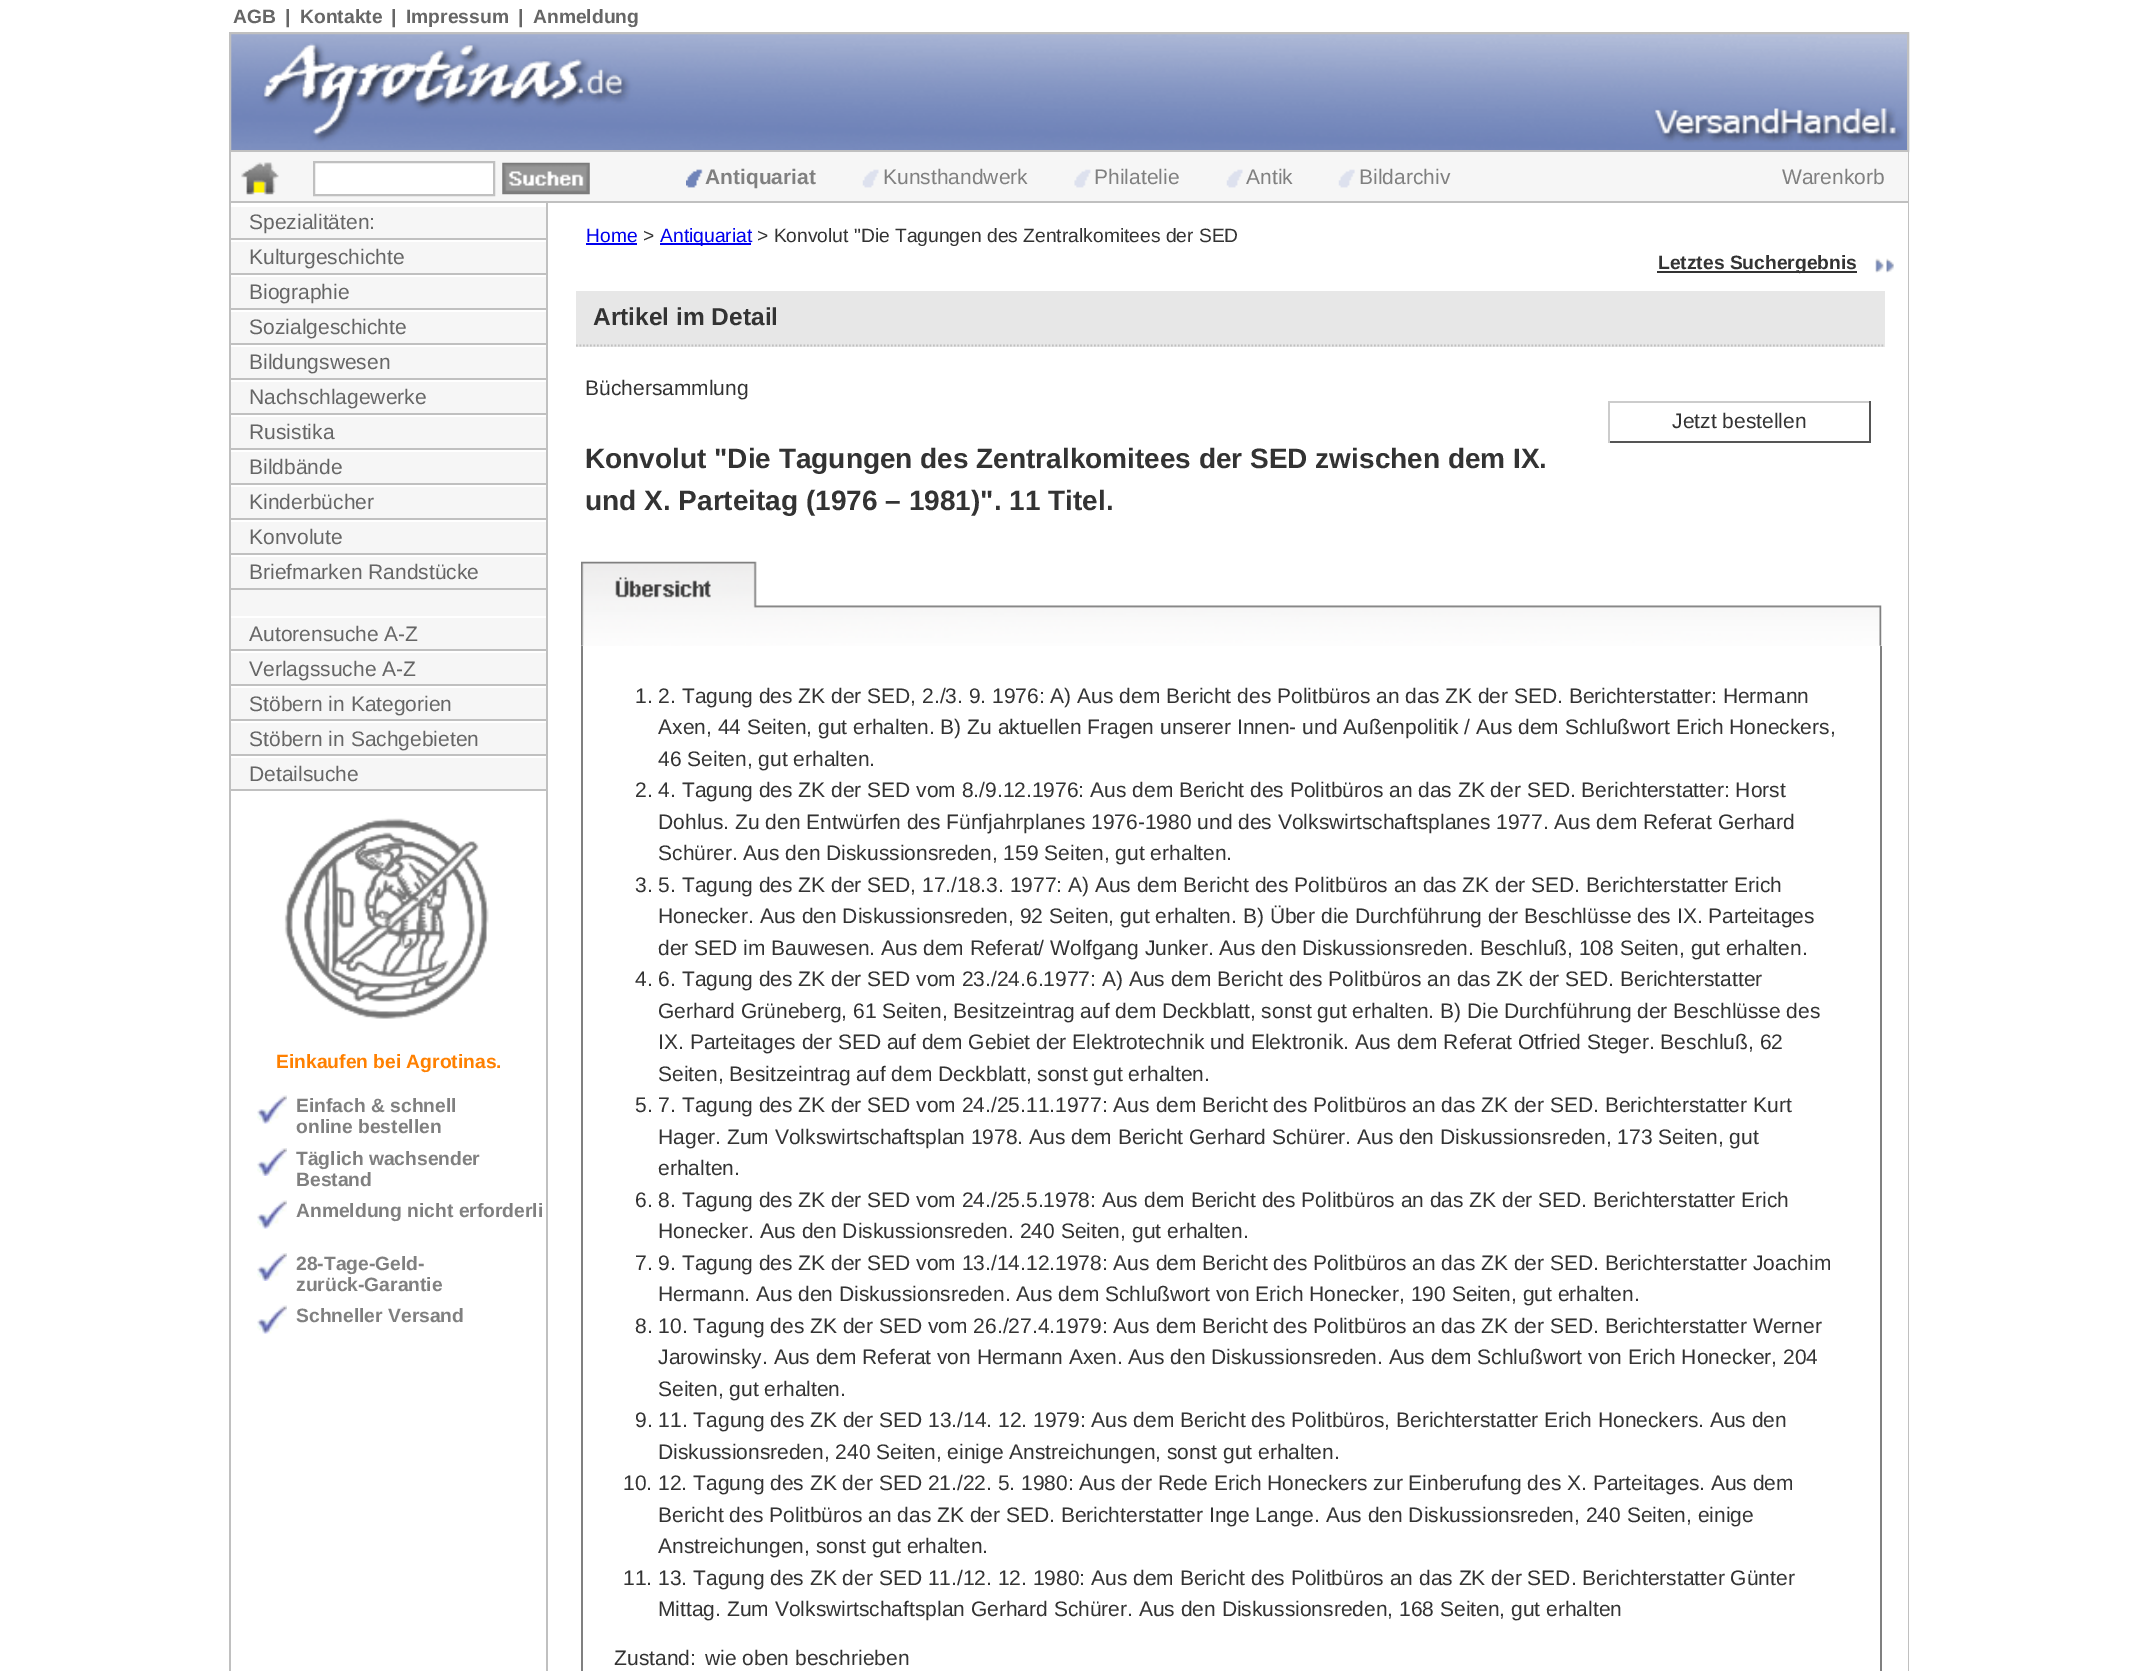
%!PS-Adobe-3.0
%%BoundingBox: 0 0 2137 1671
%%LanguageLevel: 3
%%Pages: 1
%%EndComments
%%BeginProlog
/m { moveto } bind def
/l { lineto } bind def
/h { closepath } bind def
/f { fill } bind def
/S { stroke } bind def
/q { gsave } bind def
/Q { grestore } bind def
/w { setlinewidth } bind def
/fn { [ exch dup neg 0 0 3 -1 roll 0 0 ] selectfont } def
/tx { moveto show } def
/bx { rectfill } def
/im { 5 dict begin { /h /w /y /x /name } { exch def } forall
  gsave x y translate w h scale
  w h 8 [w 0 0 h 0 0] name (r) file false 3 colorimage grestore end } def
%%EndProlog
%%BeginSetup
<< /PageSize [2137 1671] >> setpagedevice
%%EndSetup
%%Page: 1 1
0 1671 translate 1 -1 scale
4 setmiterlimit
1 setgray
0 0 2137 1671 bx
/LiberationSans-Bold 19.25 fn
0.4 setgray
(AGB) 233 23 tx
(|) 285 23 tx
(Kontakte) 300 23 tx
(|) 391 23 tx
(Impressum) 406 23 tx
(|) 518 23 tx
(Anmeldung) 533 23 tx
(image0.raw) 231 33 1679 118 im
0.753 setgray
2 w
230 33 1678 118 rectstroke
0.965 setgray
231 152 1677 49 bx
0.753 setgray
1908 152 1 1519 bx
229 201 1680 2 bx
229 152 2 51 bx
(image1.raw) 241 162 38 33 im
1 setgray
314 162 m 494 162 l 494 195 l 314 195 l h q f Q
0.753 setgray
S
(image2.raw) 502 162 88 33 im
(image3.raw) 686 169 17 19 im
/LiberationSans-Bold 21 fn
0.502 setgray
(Antiquariat) 705 184 tx
(image4.raw) 862 169 17 19 im
/LiberationSans-Regular 21 fn
(Kunsthandwerk) 883 184 tx
(image5.raw) 1074 169 17 19 im
(Philatelie) 1094 184 tx
(image4.raw) 1226 169 17 19 im
(Antik) 1246 184 tx
(image6.raw) 1338 169 17 19 im
(Bildarchiv) 1359 184 tx
(Warenkorb) 1782 184 tx
0.753 setgray
229 203 2 1468 bx
0.965 setgray
231 207 315 582 bx
0.753 setgray
231 238 315 2 bx
0.4 setgray
(Spezialitäten:) 249 229 tx
1 setgray
231 240 315 2 bx
0.753 setgray
231 273 315 2 bx
0.4 setgray
(Kulturgeschichte) 249 264 tx
1 setgray
231 275 315 2 bx
0.753 setgray
231 308 315 2 bx
0.4 setgray
(Biographie) 249 299 tx
1 setgray
231 310 315 2 bx
0.753 setgray
231 343 315 2 bx
0.4 setgray
(Sozialgeschichte) 249 334 tx
1 setgray
231 345 315 2 bx
0.753 setgray
231 378 315 2 bx
0.4 setgray
(Bildungswesen) 249 369 tx
1 setgray
231 380 315 2 bx
0.753 setgray
231 413 315 2 bx
0.4 setgray
(Nachschlagewerke) 249 404 tx
1 setgray
231 415 315 2 bx
0.753 setgray
231 448 315 2 bx
0.4 setgray
(Rusistika) 249 439 tx
1 setgray
231 450 315 2 bx
0.753 setgray
231 483 315 2 bx
0.4 setgray
(Bildbände) 249 474 tx
1 setgray
231 485 315 2 bx
0.753 setgray
231 518 315 2 bx
0.4 setgray
(Kinderbücher) 249 509 tx
1 setgray
231 520 315 2 bx
0.753 setgray
231 553 315 2 bx
0.4 setgray
(Konvolute) 249 544 tx
1 setgray
231 555 315 2 bx
0.753 setgray
231 588 315 2 bx
0.4 setgray
(Briefmarken Randstücke) 249 579 tx
1 setgray
231 616 315 2 bx
0.753 setgray
231 649 315 2 bx
0.4 setgray
(Autorensuche A-Z) 249 641 tx
1 setgray
231 651 315 2 bx
0.753 setgray
231 684 315 2 bx
0.4 setgray
(Verlagssuche A-Z) 249 676 tx
1 setgray
231 686 315 2 bx
0.753 setgray
231 719 315 2 bx
0.4 setgray
(Stöbern in Kategorien) 249 711 tx
1 setgray
231 721 315 2 bx
0.753 setgray
231 754 315 2 bx
0.4 setgray
(Stöbern in Sachgebieten) 249 746 tx
1 setgray
231 756 315 2 bx
0.753 setgray
231 789 315 2 bx
0.4 setgray
(Detailsuche) 249 781 tx
(image7.raw) 284 818 205 201 im
/LiberationSans-Bold 19.25 fn
1 0.502 0 setrgbcolor
(Einkaufen bei Agrotinas.) 276 1068 tx
(image8.raw) 257 1095 30 29 im
0.502 setgray
(Einfach & schnell) 296 1112 tx
(online bestellen) 296 1133 tx
(image9.raw) 257 1148 30 28 im
(Täglich wachsender) 296 1165 tx
(Bestand) 296 1186 tx
(image8.raw) 257 1200 30 29 im
(Anmeldung nicht erforderli) 296 1217 tx
(image9.raw) 257 1253 30 28 im
(28-Tage-Geld-) 296 1270 tx
(zurück-Garantie) 296 1291 tx
(image8.raw) 257 1305 30 29 im
(Schneller Versand) 296 1322 tx
0.753 setgray
546 203 2 1468 bx
/LiberationSans-Regular 19.25 fn
0 0 0.933 setrgbcolor
(Home) 586 242 tx
586 243 51 2 bx
0.2 setgray
(>) 643 242 tx
0 0 0.933 setrgbcolor
660 243 91 2 bx
(Antiquariat) 660 242 tx
0.2 setgray
(> Konvolut "Die Tagungen des Zentralkomitees der SED) 757 242 tx
1657 271 200 2 bx
/LiberationSans-Bold 19.25 fn
(Letztes Suchergebnis) 1658 269 tx
(image10.raw) 1875 258 19 15 im
0.906 setgray
576 291 1309 56 bx
0.753 setgray
1.8 w
[1.75 1.75] 0 setdash
576 345.5 m 1885 345.5 l S
/LiberationSans-Bold 24.5 fn
0.2 setgray
(Artikel im Detail) 593 325 tx
/LiberationSans-Regular 21 fn
(Büchersammlung) 585 395 tx
0.8 setgray
1608 401 263 2 bx
0.333 setgray
1869 401 2 42 bx
1608 441 263 2 bx
0.8 setgray
1608 401 2 42 bx
0.2 setgray
(Jetzt bestellen) 1672 428 tx
/LiberationSans-Bold 28 fn
(Konvolut "Die Tagungen des Zentralkomitees der SED zwischen dem IX.) 585 468 tx
(und X. Parteitag \(1976 – 1981\)". 11 Titel.) 585 510 tx
(image11.raw) 581 561 1301 85 im
0.502 setgray
1880 646 2 1025 bx
581 646 2 1025 bx
/LiberationSans-Regular 21 fn
0.2 setgray
(1. 2. Tagung des ZK der SED, 2./3. 9. 1976: A\) Aus dem Bericht des Politbüros an das ZK der SED. Berichterstatter: Hermann) 635 703 tx
(Axen, 44 Seiten, gut erhalten. B\) Zu aktuellen Fragen unserer Innen- und Außenpolitik / Aus dem Schlußwort Erich Honeckers,) 658 734 tx
(46 Seiten, gut erhalten.) 658 766 tx
(2. 4. Tagung des ZK der SED vom 8./9.12.1976: Aus dem Bericht des Politbüros an das ZK der SED. Berichterstatter: Horst) 635 797 tx
(Dohlus. Zu den Entwürfen des Fünfjahrplanes 1976-1980 und des Volkswirtschaftsplanes 1977. Aus dem Referat Gerhard) 658 829 tx
(Schürer. Aus den Diskussionsreden, 159 Seiten, gut erhalten.) 658 860 tx
(3. 5. Tagung des ZK der SED, 17./18.3. 1977: A\) Aus dem Bericht des Politbüros an das ZK der SED. Berichterstatter Erich) 635 892 tx
(Honecker. Aus den Diskussionsreden, 92 Seiten, gut erhalten. B\) Über die Durchführung der Beschlüsse des IX. Parteitages) 658 923 tx
(der SED im Bauwesen. Aus dem Referat/ Wolfgang Junker. Aus den Diskussionsreden. Beschluß, 108 Seiten, gut erhalten.) 658 955 tx
(4. 6. Tagung des ZK der SED vom 23./24.6.1977: A\) Aus dem Bericht des Politbüros an das ZK der SED. Berichterstatter) 635 986 tx
(Gerhard Grüneberg, 61 Seiten, Besitzeintrag auf dem Deckblatt, sonst gut erhalten. B\) Die Durchführung der Beschlüsse des) 658 1018 tx
(IX. Parteitages der SED auf dem Gebiet der Elektrotechnik und Elektronik. Aus dem Referat Otfried Steger. Beschluß, 62) 658 1049 tx
(Seiten, Besitzeintrag auf dem Deckblatt, sonst gut erhalten.) 658 1081 tx
(5. 7. Tagung des ZK der SED vom 24./25.11.1977: Aus dem Bericht des Politbüros an das ZK der SED. Berichterstatter Kurt) 635 1112 tx
(Hager. Zum Volkswirtschaftsplan 1978. Aus dem Bericht Gerhard Schürer. Aus den Diskussionsreden, 173 Seiten, gut) 658 1144 tx
(erhalten.) 658 1175 tx
(6. 8. Tagung des ZK der SED vom 24./25.5.1978: Aus dem Bericht des Politbüros an das ZK der SED. Berichterstatter Erich) 635 1207 tx
(Honecker. Aus den Diskussionsreden. 240 Seiten, gut erhalten.) 658 1238 tx
(7. 9. Tagung des ZK der SED vom 13./14.12.1978: Aus dem Bericht des Politbüros an das ZK der SED. Berichterstatter Joachim) 635 1270 tx
(Hermann. Aus den Diskussionsreden. Aus dem Schlußwort von Erich Honecker, 190 Seiten, gut erhalten.) 658 1301 tx
(8. 10. Tagung des ZK der SED vom 26./27.4.1979: Aus dem Bericht des Politbüros an das ZK der SED. Berichterstatter Werner) 635 1333 tx
(Jarowinsky. Aus dem Referat von Hermann Axen. Aus den Diskussionsreden. Aus dem Schlußwort von Erich Honecker, 204) 658 1364 tx
(Seiten, gut erhalten.) 658 1396 tx
(9. 11. Tagung des ZK der SED 13./14. 12. 1979: Aus dem Bericht des Politbüros, Berichterstatter Erich Honeckers. Aus den) 635 1427 tx
(Diskussionsreden, 240 Seiten, einige Anstreichungen, sonst gut erhalten.) 658 1459 tx
(10. 12. Tagung des ZK der SED 21./22. 5. 1980: Aus der Rede Erich Honeckers zur Einberufung des X. Parteitages. Aus dem) 623 1490 tx
(Bericht des Politbüros an das ZK der SED. Berichterstatter Inge Lange. Aus den Diskussionsreden, 240 Seiten, einige) 658 1522 tx
(Anstreichungen, sonst gut erhalten.) 658 1553 tx
(11. 13. Tagung des ZK der SED 11./12. 12. 1980: Aus dem Bericht des Politbüros an das ZK der SED. Berichterstatter Günter) 623 1585 tx
(Mittag. Zum Volkswirtschaftsplan Gerhard Schürer. Aus den Diskussionsreden, 168 Seiten, gut erhalten) 658 1616 tx
(Zustand:) 614 1665 tx
(wie oben beschrieben) 705 1665 tx
showpage
%%EOF
